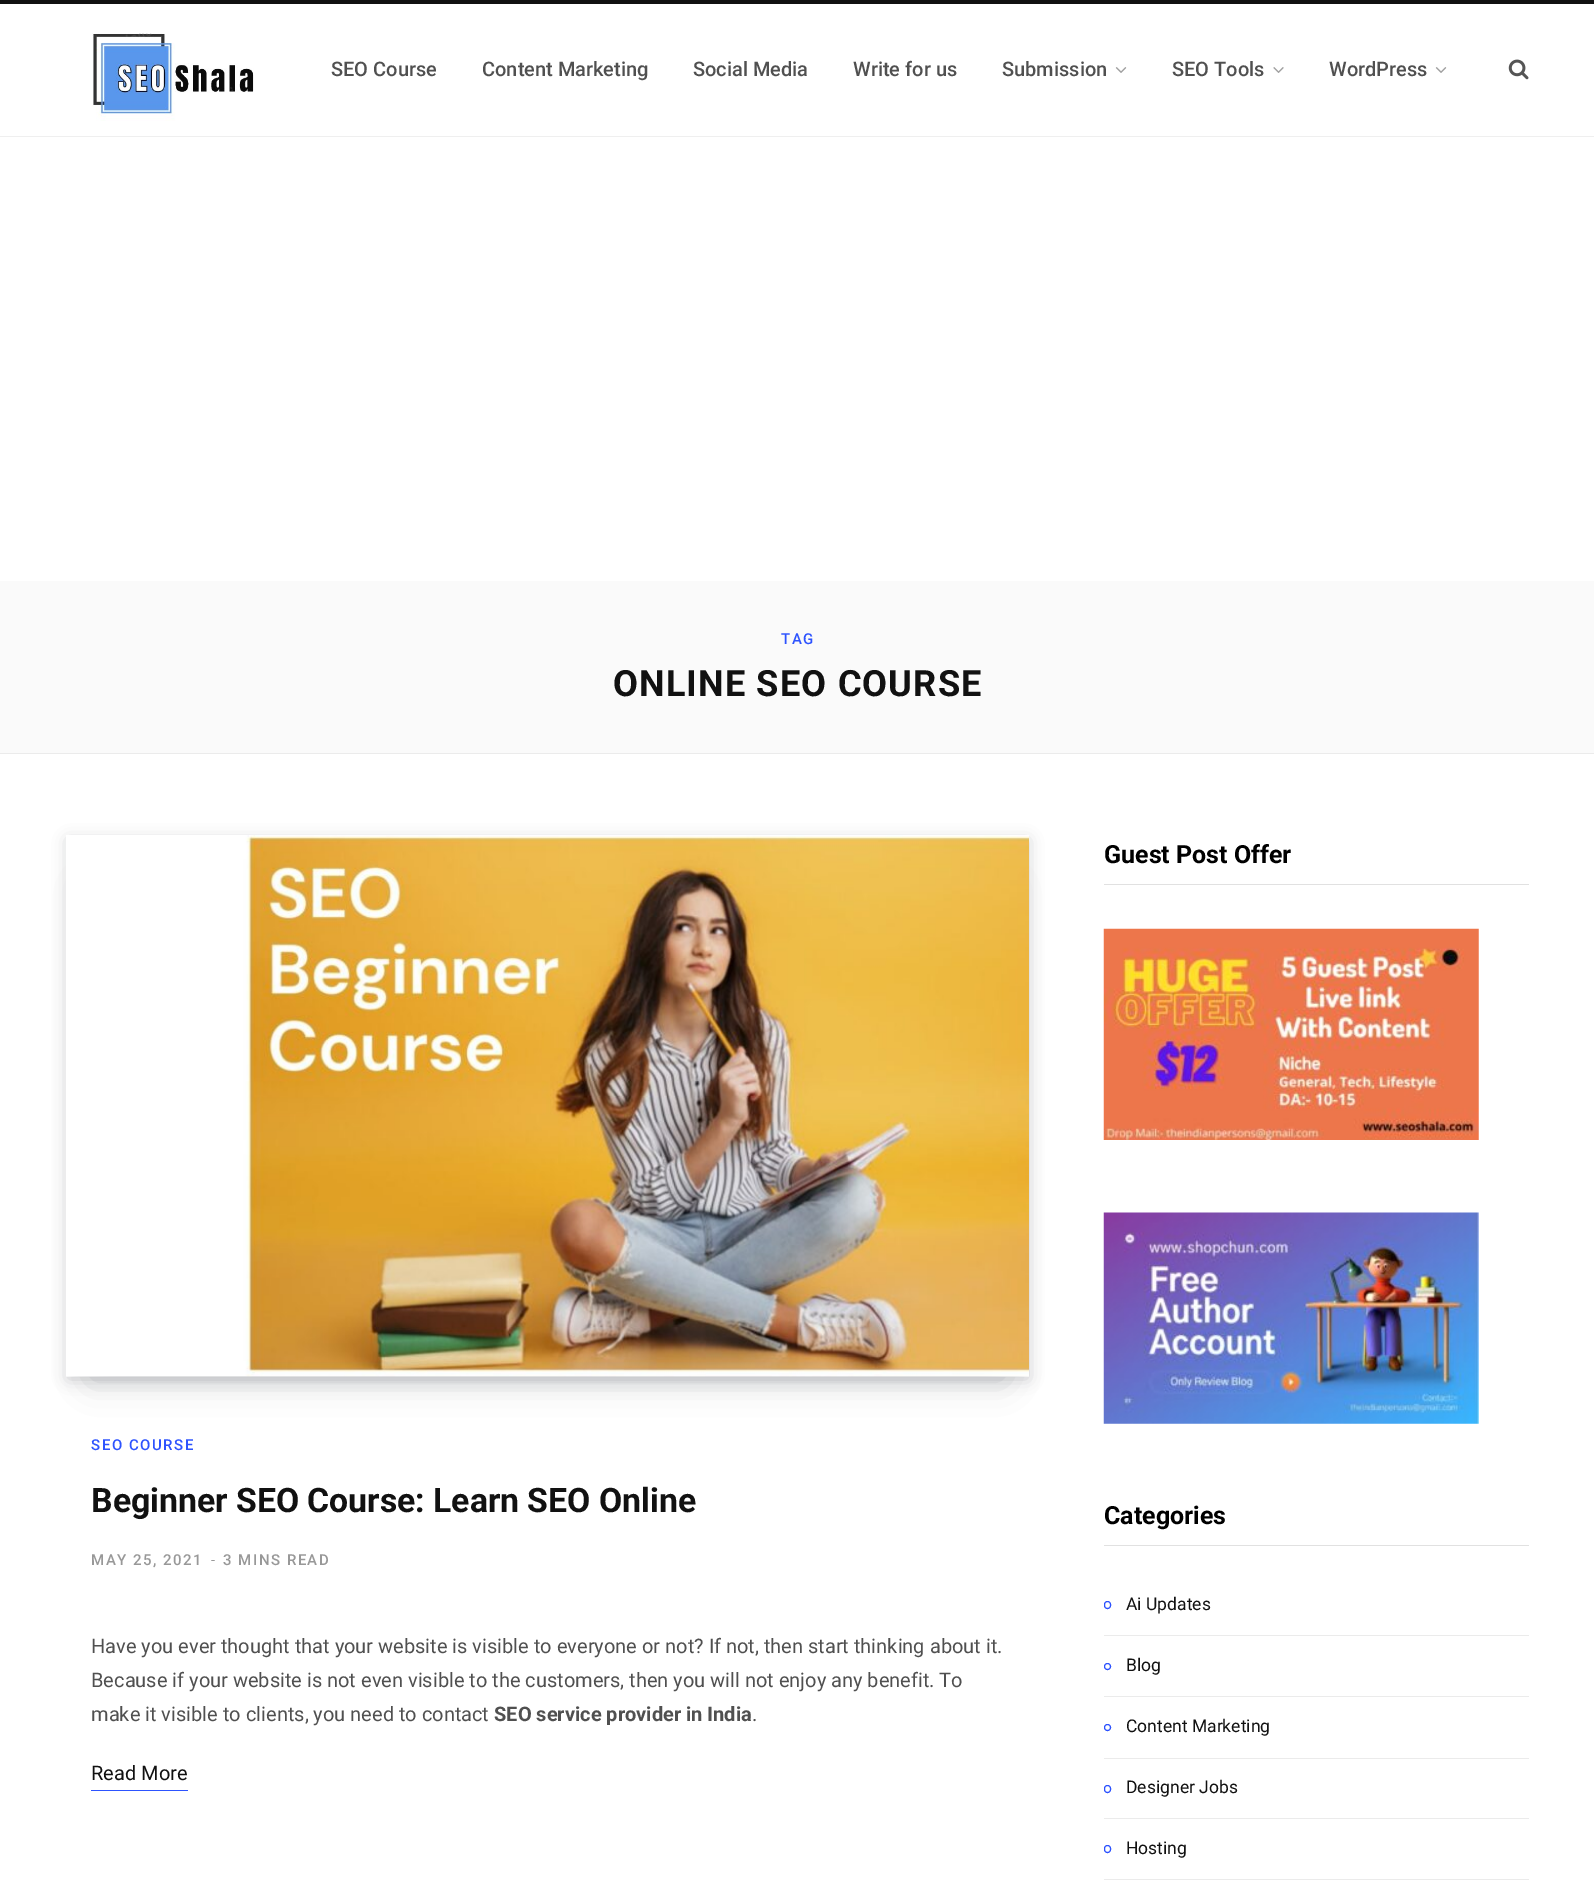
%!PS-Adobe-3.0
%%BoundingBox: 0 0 1594 1903
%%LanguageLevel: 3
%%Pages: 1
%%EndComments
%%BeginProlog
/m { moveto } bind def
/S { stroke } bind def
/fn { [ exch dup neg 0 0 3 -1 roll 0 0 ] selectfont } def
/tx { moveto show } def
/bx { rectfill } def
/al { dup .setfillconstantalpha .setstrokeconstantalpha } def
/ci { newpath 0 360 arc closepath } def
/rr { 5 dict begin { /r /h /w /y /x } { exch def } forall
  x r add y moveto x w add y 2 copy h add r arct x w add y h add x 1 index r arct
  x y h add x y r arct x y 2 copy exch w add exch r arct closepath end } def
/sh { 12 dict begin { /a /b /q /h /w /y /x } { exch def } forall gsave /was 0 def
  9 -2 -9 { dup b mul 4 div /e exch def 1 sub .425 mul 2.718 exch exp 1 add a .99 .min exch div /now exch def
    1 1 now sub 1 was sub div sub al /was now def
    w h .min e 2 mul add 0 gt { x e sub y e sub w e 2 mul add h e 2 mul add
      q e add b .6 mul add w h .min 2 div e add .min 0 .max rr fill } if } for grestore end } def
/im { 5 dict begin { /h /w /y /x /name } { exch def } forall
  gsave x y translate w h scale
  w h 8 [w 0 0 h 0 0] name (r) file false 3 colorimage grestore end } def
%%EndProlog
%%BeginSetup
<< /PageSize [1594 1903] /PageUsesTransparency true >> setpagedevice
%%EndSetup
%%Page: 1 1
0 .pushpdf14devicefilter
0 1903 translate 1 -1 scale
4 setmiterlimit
1 setgray
0 0 1594 1903 bx
0.067 setgray
0 0 1594 4 bx
0.937 setgray
0 136 1594 1 bx
(image0.raw) 92 33 162 88 im
/Roboto-Medium 20 fn
0.314 setgray
(SEO Course) 331 76 tx
(Content Marketing) 482 76 tx
(Social Media) 693 76 tx
(Write for us) 853 76 tx
(Submission) 1002 76 tx
(image1.raw) 1115 67 12 6 im
(SEO Tools) 1172 76 tx
(image2.raw) 1273 67 11 6 im
(WordPress) 1329 76 tx
(image1.raw) 1435 67 12 6 im
(image3.raw) 1508 59 21 21 im
0.98 setgray
0 581 1594 172 bx
0.922 setgray
0 753 1594 1 bx
/Roboto-Medium 15 fn
0.176 0.325 0.996 setrgbcolor
781 644 m 1.5 0 (TAG) ashow
/Roboto-Bold 36.25 fn
0.067 setgray
613 696 m 1.1 0 (ONLINE SEO COURSE) ashow
0.027 0.039 0.098 setrgbcolor
91 888 913 491 0 17 0.2 sh
68 840 960 539 0 7.5 0.2 sh
(image4.raw) 66 835 963 542 im
/Roboto-Medium 15 fn
0.176 0.325 0.996 setrgbcolor
91 1450 m 1.5 0 (SEO COURSE) ashow
/Roboto-Bold 33.75 fn
0.067 setgray
(Beginner SEO Course: Learn SEO Online) 91 1512 tx
/Roboto-Medium 15 fn
0.596 setgray
91 1565 m 1.5 0 (MAY 25, 2021) ashow
/Roboto-Regular 15 fn
(-) 211 1565 tx
/Roboto-Medium 15 fn
223 1565 m 1.5 0 (3 MINS READ) ashow
/Roboto-Regular 20 fn
0.314 setgray
(Have you ever thought that your website is visible to everyone or not? If not, then start thinking about it.) 91 1653 tx
(Because if your website is not even visible to the customers, then you will not enjoy any benefit. To) 91 1687 tx
(make it visible to clients, you need to contact) 91 1721 tx
/Roboto-Bold 20 fn
(SEO service provider in India) 494 1721 tx
/Roboto-Regular 20 fn
(.) 752 1721 tx
0.067 setgray
(Read More) 91 1780 tx
0.176 0.325 0.996 setrgbcolor
91 1790 97 1 bx
0.882 setgray
1104 884 425 1 bx
/Roboto-Bold 25 fn
0 setgray
(Guest Post Offer) 1104 863 tx
(image5.raw) 1103 928 376 212 im
(image6.raw) 1103 1212 376 212 im
0.882 setgray
1104 1545 425 1 bx
0 setgray
(Categories) 1104 1524 tx
0.922 setgray
1104 1635 425 1 bx
0.176 0.325 0.996 setrgbcolor
1104.5 1601.5 6 7 3 rr S
/Roboto-Regular 17.5 fn
0.067 setgray
(Ai Updates) 1126 1610 tx
0.922 setgray
1104 1696 425 1 bx
0.176 0.325 0.996 setrgbcolor
1107.5 1666.5 3 ci S
0.067 setgray
(Blog) 1126 1671 tx
0.922 setgray
1104 1758 425 1 bx
0.176 0.325 0.996 setrgbcolor
1107.5 1727.5 3 ci S
0.067 setgray
(Content Marketing) 1126 1732 tx
0.922 setgray
1104 1818 425 1 bx
0.176 0.325 0.996 setrgbcolor
1104.5 1785.5 6 7 3 rr S
0.067 setgray
(Designer Jobs) 1126 1793 tx
0.922 setgray
1104 1879 425 1 bx
0.176 0.325 0.996 setrgbcolor
1104.5 1845.5 6 7 3 rr S
0.067 setgray
(Hosting) 1126 1854 tx
.poppdf14devicefilter showpage
%%EOF
